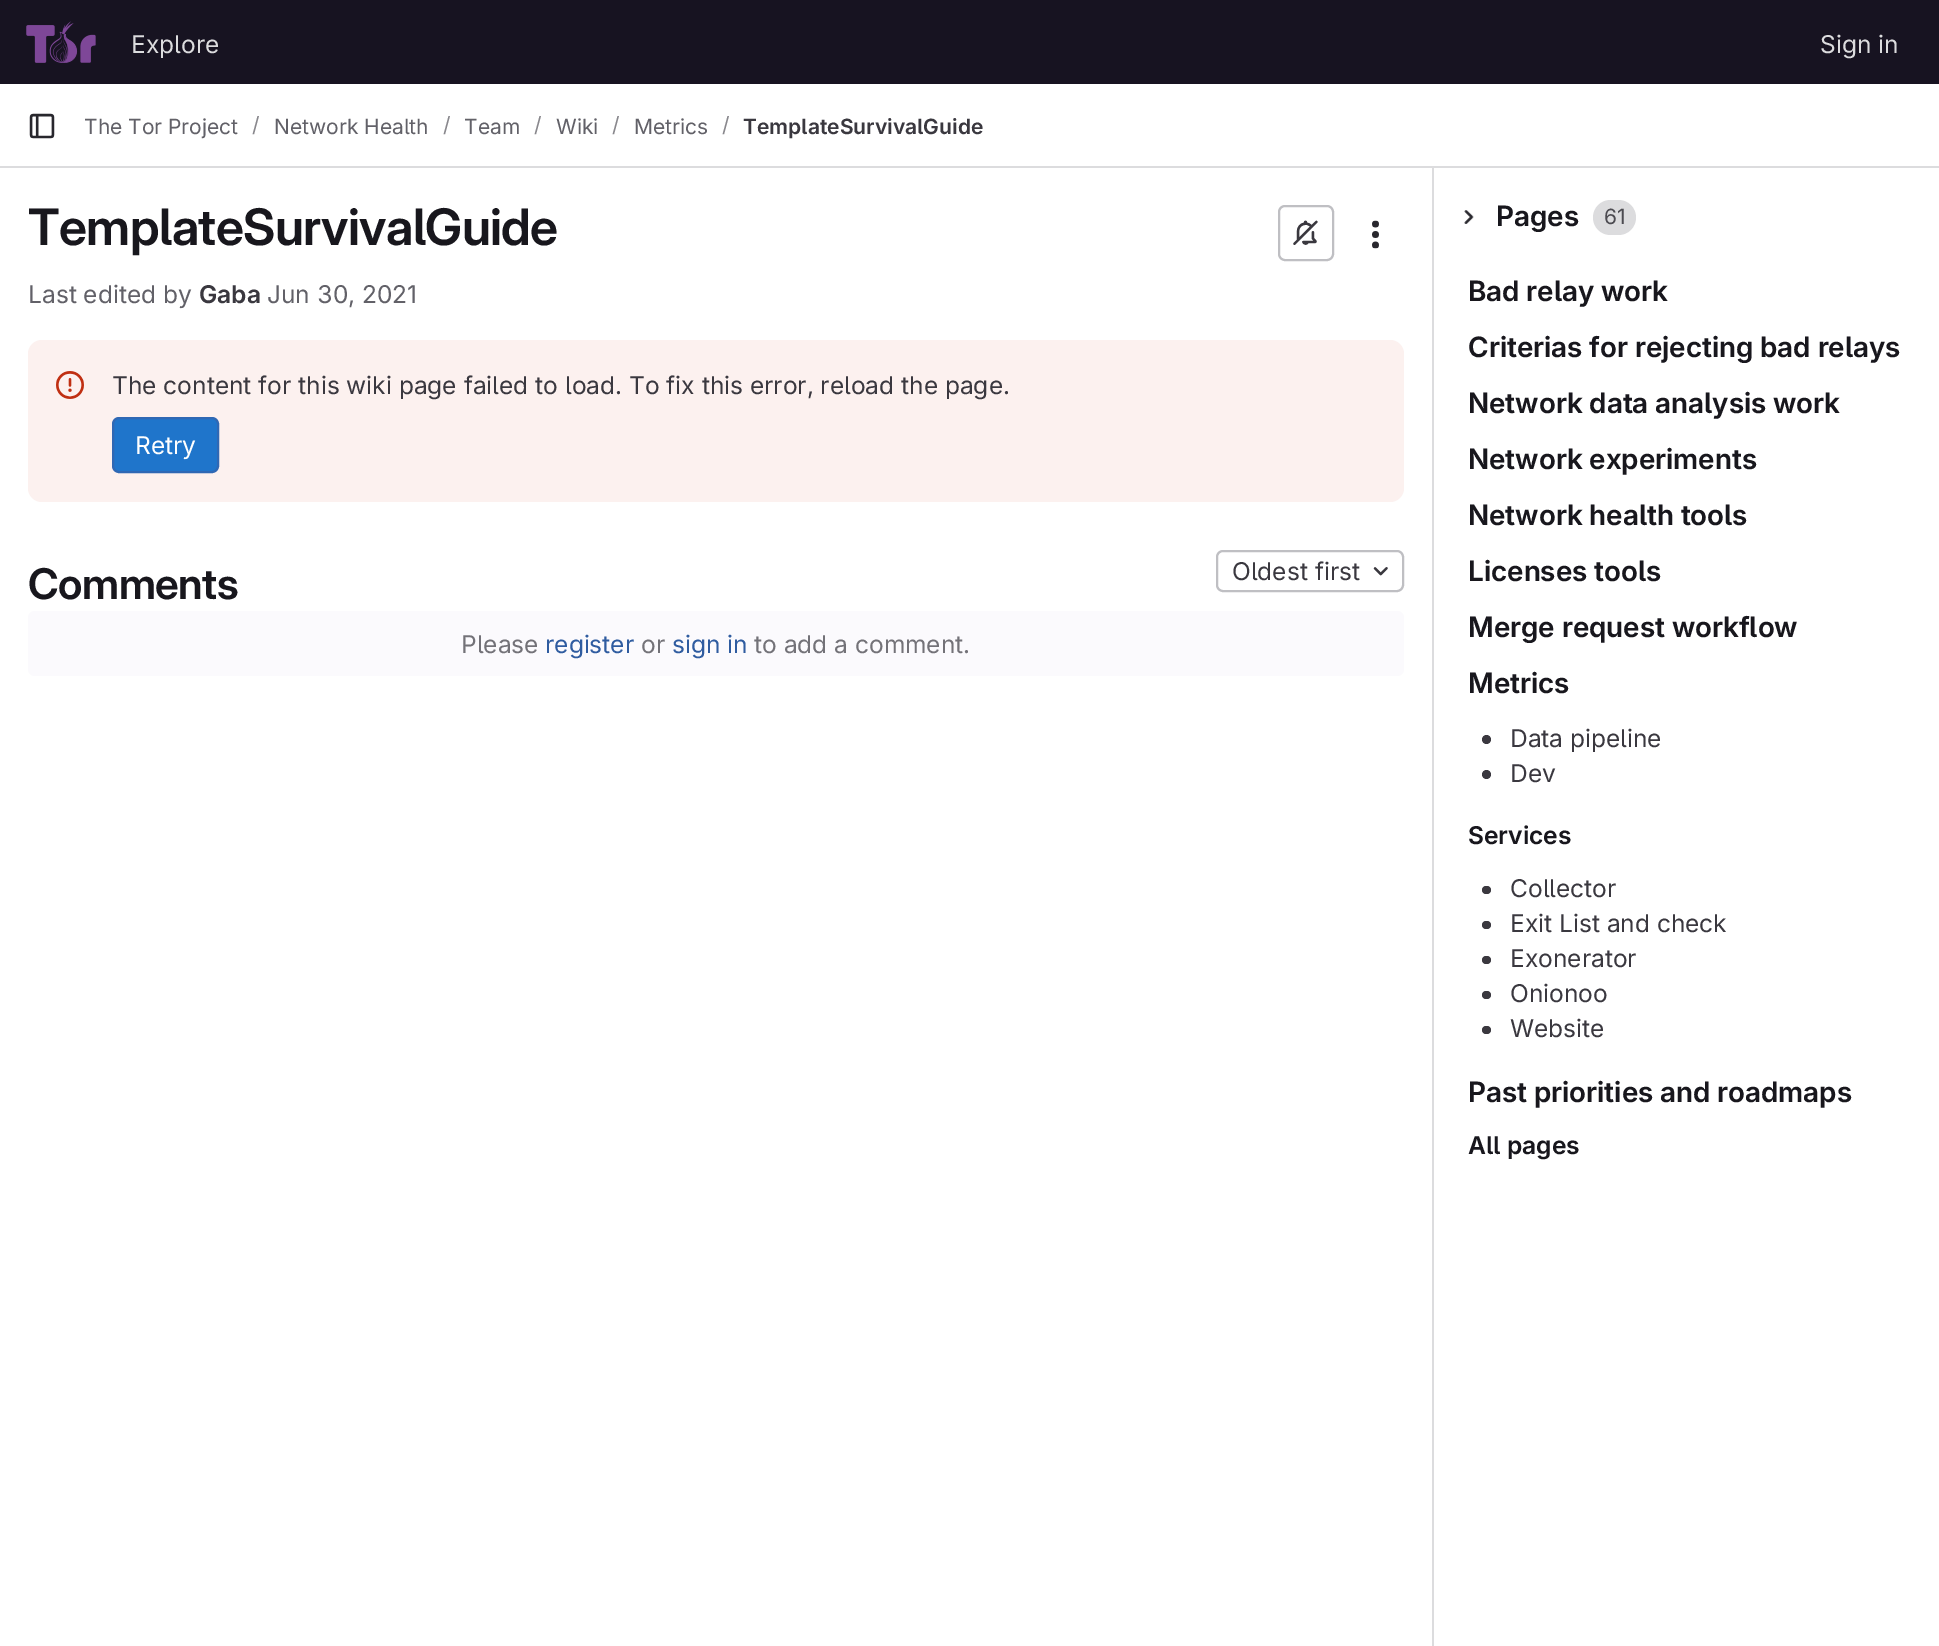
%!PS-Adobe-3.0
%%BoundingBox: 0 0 1939 1646
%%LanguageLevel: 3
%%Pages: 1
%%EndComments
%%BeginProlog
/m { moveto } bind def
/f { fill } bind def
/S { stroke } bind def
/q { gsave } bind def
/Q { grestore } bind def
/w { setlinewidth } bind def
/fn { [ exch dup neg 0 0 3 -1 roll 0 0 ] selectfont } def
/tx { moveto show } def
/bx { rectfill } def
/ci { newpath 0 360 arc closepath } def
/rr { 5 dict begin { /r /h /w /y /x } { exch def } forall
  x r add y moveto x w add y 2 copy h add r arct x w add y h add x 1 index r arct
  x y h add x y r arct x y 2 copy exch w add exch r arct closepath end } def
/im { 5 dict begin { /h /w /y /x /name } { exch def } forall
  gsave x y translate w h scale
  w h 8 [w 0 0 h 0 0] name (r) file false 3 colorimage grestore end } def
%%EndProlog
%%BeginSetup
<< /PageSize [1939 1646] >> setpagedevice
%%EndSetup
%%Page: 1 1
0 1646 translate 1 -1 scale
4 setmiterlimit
1 setgray
0 0 1939 1646 bx
0.09 0.075 0.129 setrgbcolor
0 0 1939 84 bx
(image0.raw) 26 21 70 42 im
/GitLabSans-Regular 24.5 fn
0.863 0.863 0.871 setrgbcolor
(Explore) 131 53 tx
(Sign in) 1820 53 tx
0 166 1939 2 bx
(image1.raw) 29 113 26 26 im
/GitLabSans-Regular 21 fn
0.384 0.38 0.408 setrgbcolor
(The Tor Project) 84 134 tx
0.537 0.533 0.553 setrgbcolor
(/) 252 132 tx
0.384 0.38 0.408 setrgbcolor
(Network Health) 274 134 tx
0.537 0.533 0.553 setrgbcolor
(/) 443 132 tx
0.384 0.38 0.408 setrgbcolor
(Team) 464 134 tx
0.537 0.533 0.553 setrgbcolor
(/) 534 132 tx
0.384 0.38 0.408 setrgbcolor
(Wiki) 556 134 tx
0.537 0.533 0.553 setrgbcolor
(/) 612 132 tx
0.384 0.38 0.408 setrgbcolor
(Metrics) 634 134 tx
0.537 0.533 0.553 setrgbcolor
(/) 722 132 tx
/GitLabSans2-SemiBold 21 fn
0.227 0.22 0.247 setrgbcolor
(TemplateSurvivalGuide) 743 134 tx
/GitLabSans-SemiBold 50.25 fn
0.094 0.09 0.114 setrgbcolor
28 245 m -0.5 0 (TemplateSurvivalGuide) ashow
0.749 0.749 0.765 setrgbcolor
2 w
1279 206 54 54 6 rr S
(image2.raw) 1293 220 25 25 im
(image3.raw) 1372 220 7 29 im
/GitLabSans-Regular 24.5 fn
0.384 0.38 0.408 setrgbcolor
(Last edited by) 28 303 tx
/GitLabSans2-SemiBold 24.5 fn
0.227 0.22 0.247 setrgbcolor
(Gaba) 199 303 tx
/GitLabSans-Regular 24.5 fn
0.384 0.38 0.408 setrgbcolor
(Jun 30, 2021) 267 303 tx
0.988 0.945 0.937 setrgbcolor
28 340 1376 162 14 rr f
(image4.raw) 56 371 28 28 im
0.227 0.22 0.247 setrgbcolor
(The content for this wiki page failed to load. To fix this error, reload the page.) 112 394 tx
0.122 0.459 0.796 setrgbcolor
113 418 105 54 6 rr q f Q
0.184 0.408 0.706 setrgbcolor
S
1 setgray
(Retry) 135 454 tx
/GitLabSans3-SemiBold 42.25 fn
0.094 0.09 0.114 setrgbcolor
28 599 m -0.5 0 (Comments) ashow
0.749 0.749 0.765 setrgbcolor
1217 551 186 40 6 rr S
/GitLabSans-Regular 24.5 fn
0.227 0.22 0.247 setrgbcolor
(Oldest first) 1232 580 tx
(image5.raw) 1373 567 15 9 im
0.984 0.98 0.992 setrgbcolor
28 611 1376 65 7 rr f
0.451 0.447 0.471 setrgbcolor
(Please) 461 653 tx
0.184 0.361 0.627 setrgbcolor
(register) 545 653 tx
0.451 0.447 0.471 setrgbcolor
(or) 641 653 tx
0.184 0.361 0.627 setrgbcolor
(sign in) 672 653 tx
0.451 0.447 0.471 setrgbcolor
(to add a comment.) 754 653 tx
0.863 0.863 0.871 setrgbcolor
1432 168 2 1478 bx
(image6.raw) 1464 210 10 14 im
/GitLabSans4-SemiBold 28 fn
0.094 0.09 0.114 setrgbcolor
(Pages) 1496 226 tx
0.863 0.863 0.871 setrgbcolor
1593 200 43 35 17.5 rr f
/GitLabSans-Regular 21 fn
0.298 0.294 0.318 setrgbcolor
(61) 1604 224 tx
/GitLabSans4-SemiBold 28 fn
0.094 0.09 0.114 setrgbcolor
(Bad relay work) 1468 301 tx
(Criterias for rejecting bad relays) 1468 357 tx
(Network data analysis work) 1468 413 tx
(Network experiments) 1468 469 tx
(Network health tools) 1468 525 tx
(Licenses tools) 1468 581 tx
(Merge request workflow) 1468 637 tx
(Metrics) 1468 693 tx
0.227 0.22 0.247 setrgbcolor
1486.5 739.5 4.5 ci f
/GitLabSans-Regular 24.5 fn
(Data pipeline) 1510 747 tx
1486.5 774.5 4.5 ci f
(Dev) 1510 782 tx
/GitLabSans2-SemiBold 24.5 fn
0.094 0.09 0.114 setrgbcolor
(Services) 1468 844 tx
0.227 0.22 0.247 setrgbcolor
1482 886 9 8 4 rr f
/GitLabSans-Regular 24.5 fn
(Collector) 1510 897 tx
1482 921 9 8 4 rr f
(Exit List and check) 1510 932 tx
1482 956 9 8 4 rr f
(Exonerator) 1510 967 tx
1482 991 9 8 4 rr f
(Onionoo) 1510 1002 tx
1482 1026 9 8 4 rr f
(Website) 1510 1037 tx
/GitLabSans4-SemiBold 28 fn
0.094 0.09 0.114 setrgbcolor
(Past priorities and roadmaps) 1468 1102 tx
/GitLabSans2-SemiBold 24.5 fn
(All pages) 1468 1154 tx
showpage
%%EOF
